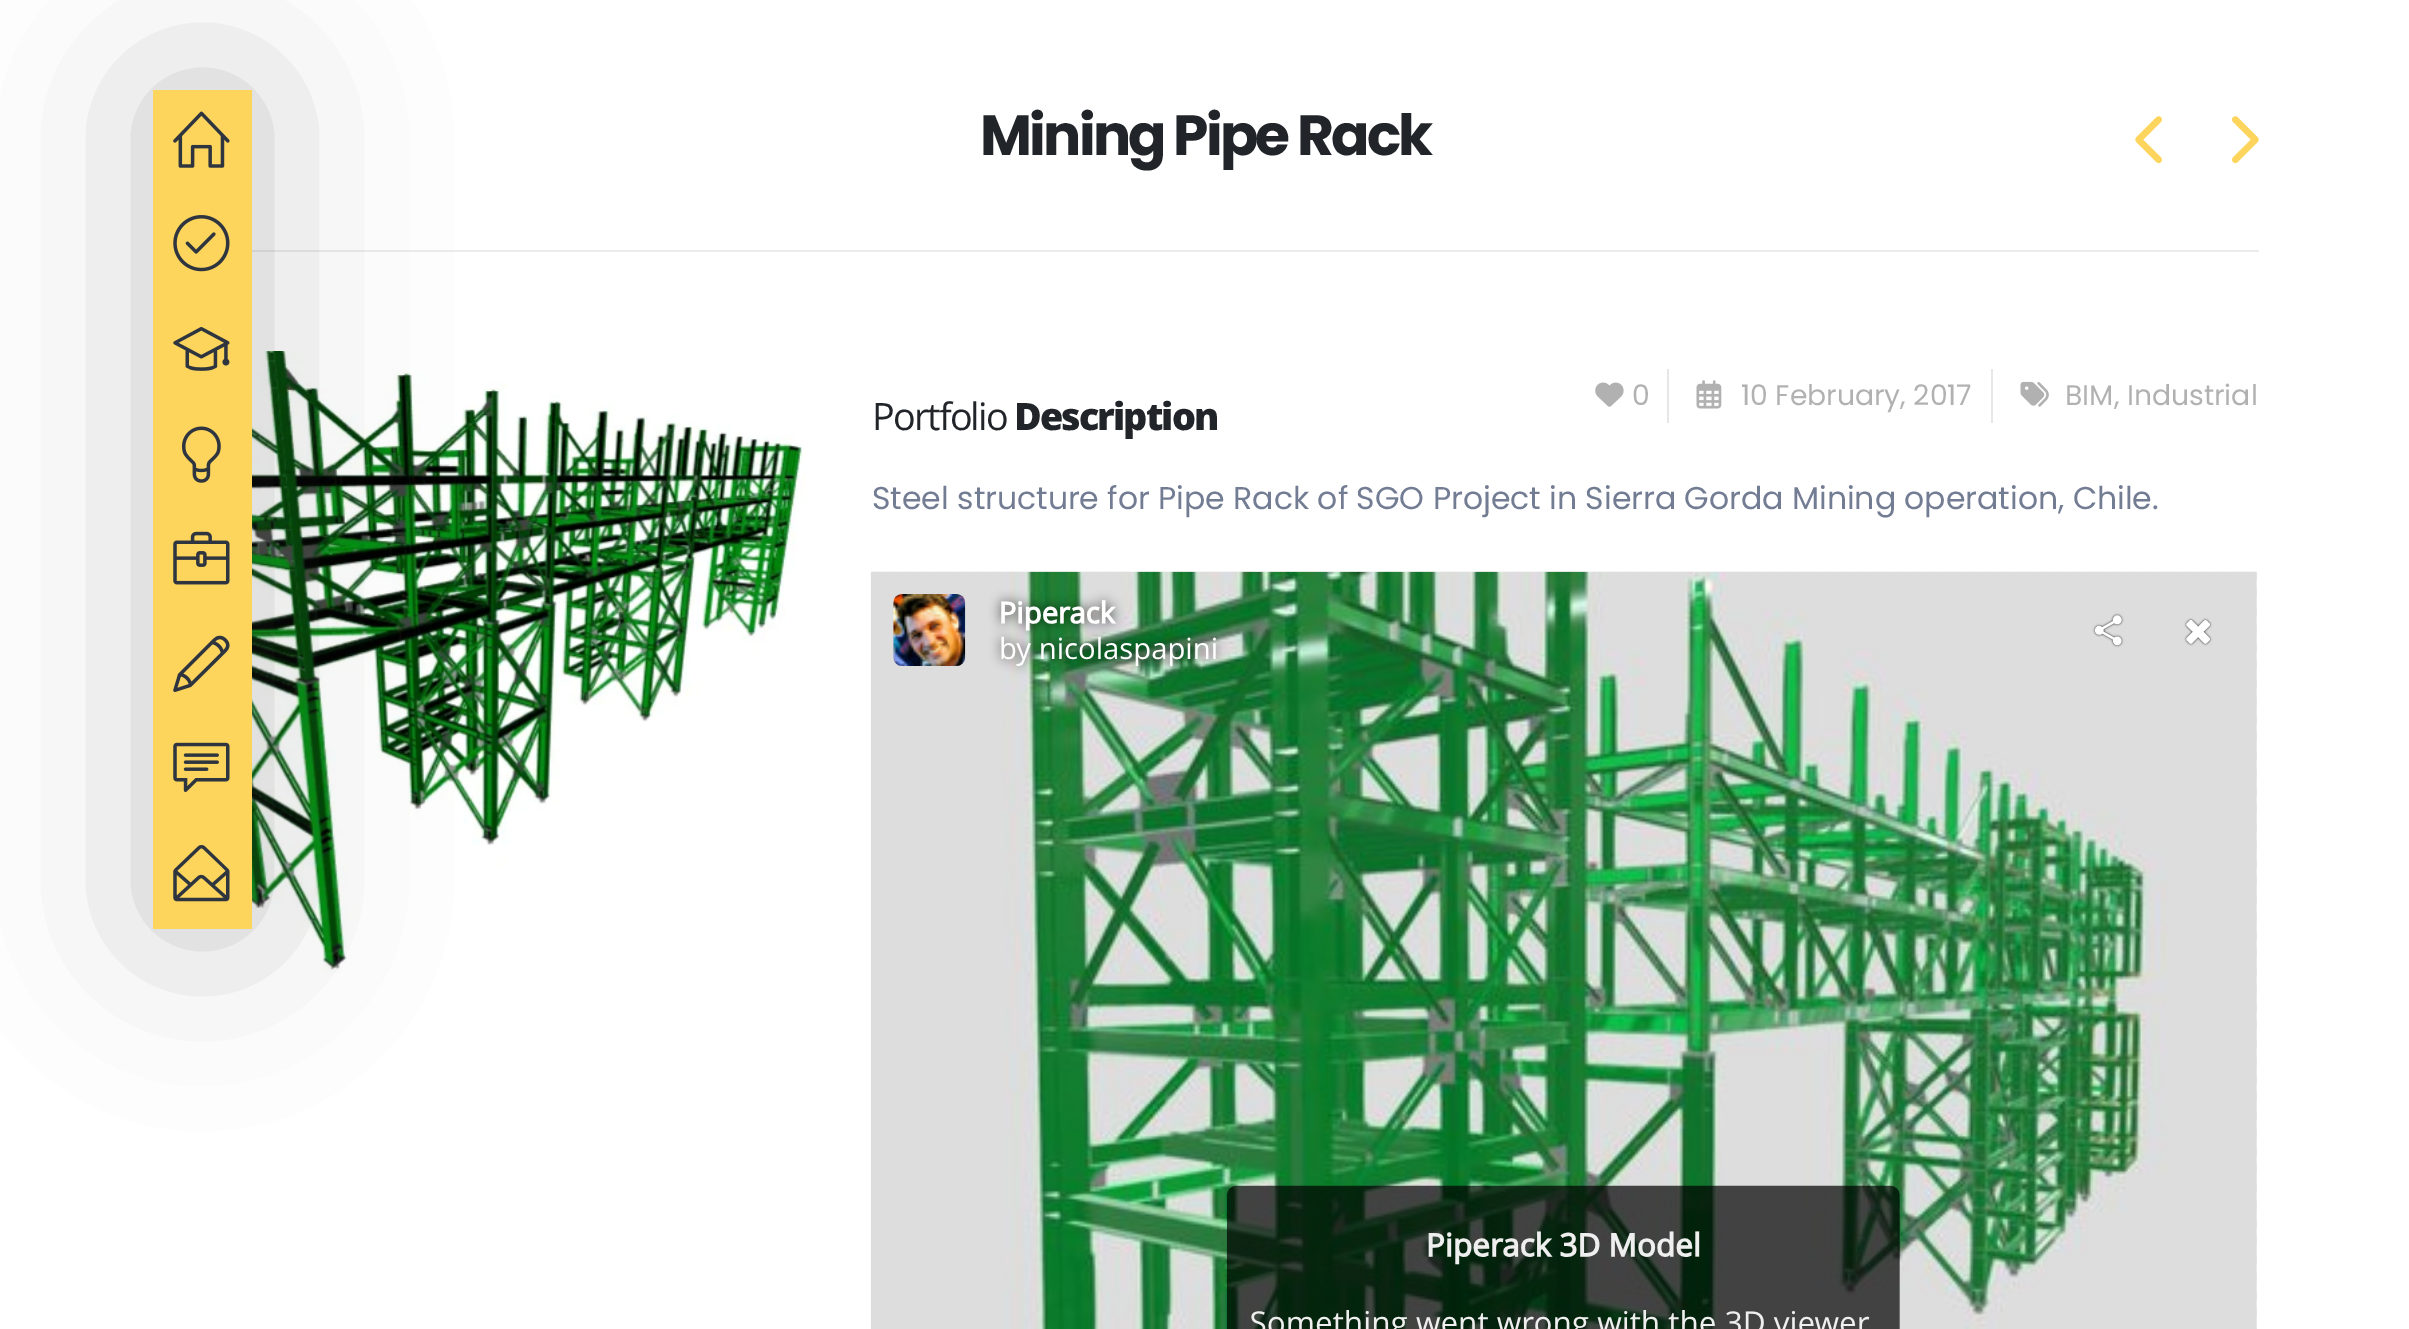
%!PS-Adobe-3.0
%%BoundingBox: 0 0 2409 1329
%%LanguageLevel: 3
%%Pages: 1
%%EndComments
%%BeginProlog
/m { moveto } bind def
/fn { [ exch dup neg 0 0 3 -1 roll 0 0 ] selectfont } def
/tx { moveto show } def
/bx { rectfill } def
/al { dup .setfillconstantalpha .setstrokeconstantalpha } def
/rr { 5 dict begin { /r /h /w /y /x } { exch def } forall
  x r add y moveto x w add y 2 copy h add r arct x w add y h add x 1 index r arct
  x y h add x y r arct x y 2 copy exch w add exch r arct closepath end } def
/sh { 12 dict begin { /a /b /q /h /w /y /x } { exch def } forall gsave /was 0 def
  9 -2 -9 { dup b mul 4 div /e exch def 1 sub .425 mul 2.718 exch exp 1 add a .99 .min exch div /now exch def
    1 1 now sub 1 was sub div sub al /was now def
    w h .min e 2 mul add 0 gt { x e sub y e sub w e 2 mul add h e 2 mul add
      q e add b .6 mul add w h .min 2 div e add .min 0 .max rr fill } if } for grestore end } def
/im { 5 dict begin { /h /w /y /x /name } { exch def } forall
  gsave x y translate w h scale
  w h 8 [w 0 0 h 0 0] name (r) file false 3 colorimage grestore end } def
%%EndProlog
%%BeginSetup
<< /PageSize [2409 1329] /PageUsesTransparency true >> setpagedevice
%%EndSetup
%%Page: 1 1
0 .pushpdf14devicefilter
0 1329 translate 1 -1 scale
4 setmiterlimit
1 setgray
0 0 2409 1329 bx
0.922 setgray
252 250 2007 2 bx
(image10.raw) 153 351 653 622 im
0.243 setgray
153 90 99 839 0 90 0.3 sh
0.992 0.835 0.361 setrgbcolor
153 90 99 839 bx
(image0.raw) 173 111 57 57 im
(image1.raw) 173 215 57 57 im
(image2.raw) 173 326 57 45 im
(image3.raw) 182 426 39 57 im
(image4.raw) 173 531 57 54 im
(image5.raw) 173 635 57 57 im
(image6.raw) 173 742 57 50 im
(image7.raw) 173 845 57 57 im
/Poppins-Bold 56.75 fn
0.129 0.145 0.161 setrgbcolor
980 155 m -2.8 0 (Mining Pipe Rack) ashow
(image8.raw) 2135 116 27 48 im
(image9.raw) 2232 116 27 48 im
/OpenSans-Regular 37.75 fn
872 430 m -1.9 0 (Portfolio) ashow
/OpenSans-ExtraBold 37.75 fn
1014 430 m -1.9 0 (Description) ashow
0.906 setgray
1667 369 2 54 bx
(image11.raw) 1595 382 29 25 im
/Poppins-Regular 28.25 fn
0.694 setgray
(0) 1632 405 tx
0.906 setgray
1991 369 2 54 bx
(image12.raw) 1696 380 26 29 im
0.694 setgray
(10 February, 2017) 1741 405 tx
(image13.raw) 2020 381 29 26 im
(BIM, Industrial) 2065 405 tx
/Poppins-Regular 31.5 fn
0.447 0.486 0.576 setrgbcolor
(Steel structure for Pipe Rack of SGO Project in Sierra Gorda Mining operation, Chile.) 872 509 tx
(image14.raw) 870 571 1387 758 im
.poppdf14devicefilter showpage
%%EOF
